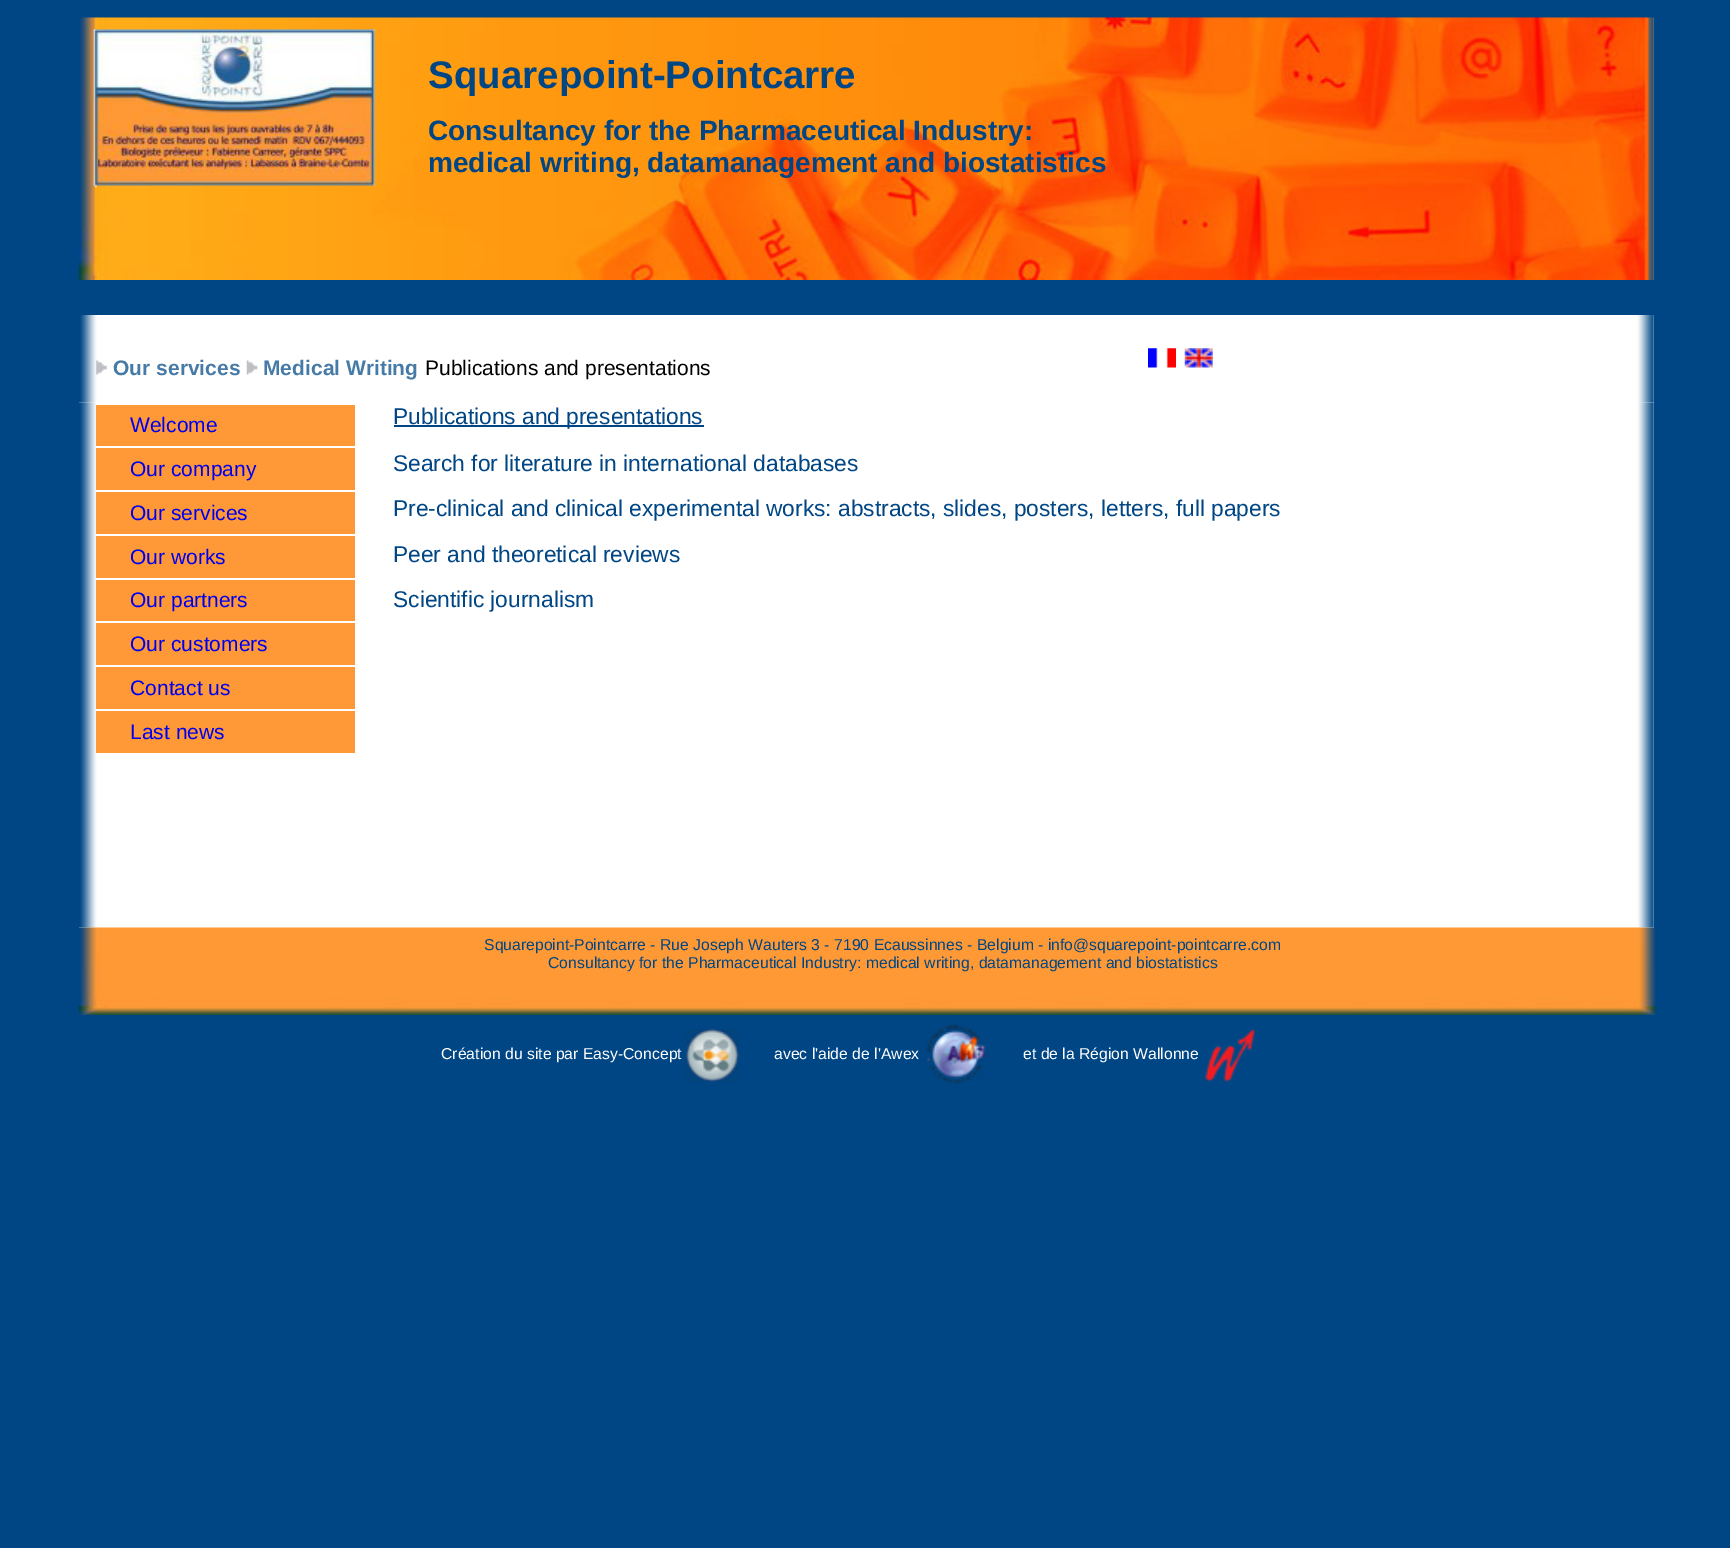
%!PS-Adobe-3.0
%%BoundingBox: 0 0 1730 1548
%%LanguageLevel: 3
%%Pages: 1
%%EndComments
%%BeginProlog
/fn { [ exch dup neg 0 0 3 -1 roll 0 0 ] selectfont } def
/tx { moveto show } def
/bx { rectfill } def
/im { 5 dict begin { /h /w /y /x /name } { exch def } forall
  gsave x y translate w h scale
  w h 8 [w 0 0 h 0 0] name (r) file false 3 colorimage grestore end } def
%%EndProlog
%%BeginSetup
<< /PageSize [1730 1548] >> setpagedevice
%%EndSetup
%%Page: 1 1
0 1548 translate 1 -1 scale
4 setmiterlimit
0 0.275 0.518 setrgbcolor
0 0 1730 1548 bx
(image0.raw) 78 17 1576 263 im
(image1.raw) 93 29 283 159 im
/LiberationSans-Bold 38.5 fn
(Squarepoint-Pointcarre) 428 88 tx
/LiberationSans-Bold 28 fn
(Consultancy for the Pharmaceutical Industry:) 428 140 tx
(medical writing, datamanagement and biostatistics) 428 172 tx
1 setgray
79 315 1575 613 bx
(image2.raw) 79 315 1575 88 im
(image3.raw) 96 360 11 15 im
/LiberationSans-Bold 21 fn
0.275 0.478 0.655 setrgbcolor
(Our services) 113 375 tx
(image4.raw) 246 360 12 15 im
(Medical Writing) 263 375 tx
/LiberationSans-Regular 21 fn
0 setgray
(Publications and presentations) 425 375 tx
(image5.raw) 1148 348 28 20 im
(image6.raw) 1184 348 29 20 im
(image7.raw) 79 402 1575 526 im
1 0.596 0.216 setrgbcolor
96 405 259 41 bx
1 setgray
96 403 5 2 bx
0 0 0.933 setrgbcolor
(Welcome) 130 432 tx
1 0.596 0.216 setrgbcolor
96 448 259 42 bx
1 setgray
96 446 5 2 bx
0 0 0.933 setrgbcolor
(Our company) 130 476 tx
1 0.596 0.216 setrgbcolor
96 492 259 42 bx
1 setgray
96 490 5 2 bx
0 0 0.933 setrgbcolor
(Our services) 130 520 tx
1 0.596 0.216 setrgbcolor
96 536 259 42 bx
1 setgray
96 534 5 2 bx
0 0 0.933 setrgbcolor
(Our works) 130 564 tx
1 0.596 0.216 setrgbcolor
96 580 259 41 bx
1 setgray
96 578 5 2 bx
0 0 0.933 setrgbcolor
(Our partners) 130 607 tx
1 0.596 0.216 setrgbcolor
96 623 259 42 bx
1 setgray
96 621 5 2 bx
0 0 0.933 setrgbcolor
(Our customers) 130 651 tx
1 0.596 0.216 setrgbcolor
96 667 259 42 bx
1 setgray
96 665 5 2 bx
0 0 0.933 setrgbcolor
(Contact us) 130 695 tx
1 0.596 0.216 setrgbcolor
96 711 259 42 bx
1 setgray
96 709 5 2 bx
0 0 0.933 setrgbcolor
(Last news) 130 739 tx
0 0.275 0.518 setrgbcolor
394 425 310 2 bx
/LiberationSans-Regular 22.75 fn
(Publications and presentations) 393 424 tx
(Search for literature in international databases) 393 471 tx
(Pre-clinical and clinical experimental works: abstracts, slides, posters, letters, full papers) 393 516 tx
(Peer and theoretical reviews) 393 562 tx
(Scientific journalism) 393 607 tx
(image8.raw) 78 927 1578 88 im
/LiberationSans-Regular 15.75 fn
(Squarepoint-Pointcarre - Rue Joseph Wauters 3 - 7190 Ecaussinnes - Belgium - info@squarepoint-pointcarre.com) 484 950 tx
(Consultancy for the Pharmaceutical Industry: medical writing, datamanagement and biostatistics) 548 968 tx
1 setgray
(Création du site par Easy-Concept) 441 1059 tx
(image9.raw) 686 1029 53 53 im
(avec l'aide de l'Awex) 774 1059 tx
(image10.raw) 926 1023 60 62 im
(et de la Région Wallonne) 1023 1059 tx
(image11.raw) 1204 1029 51 53 im
showpage
%%EOF
